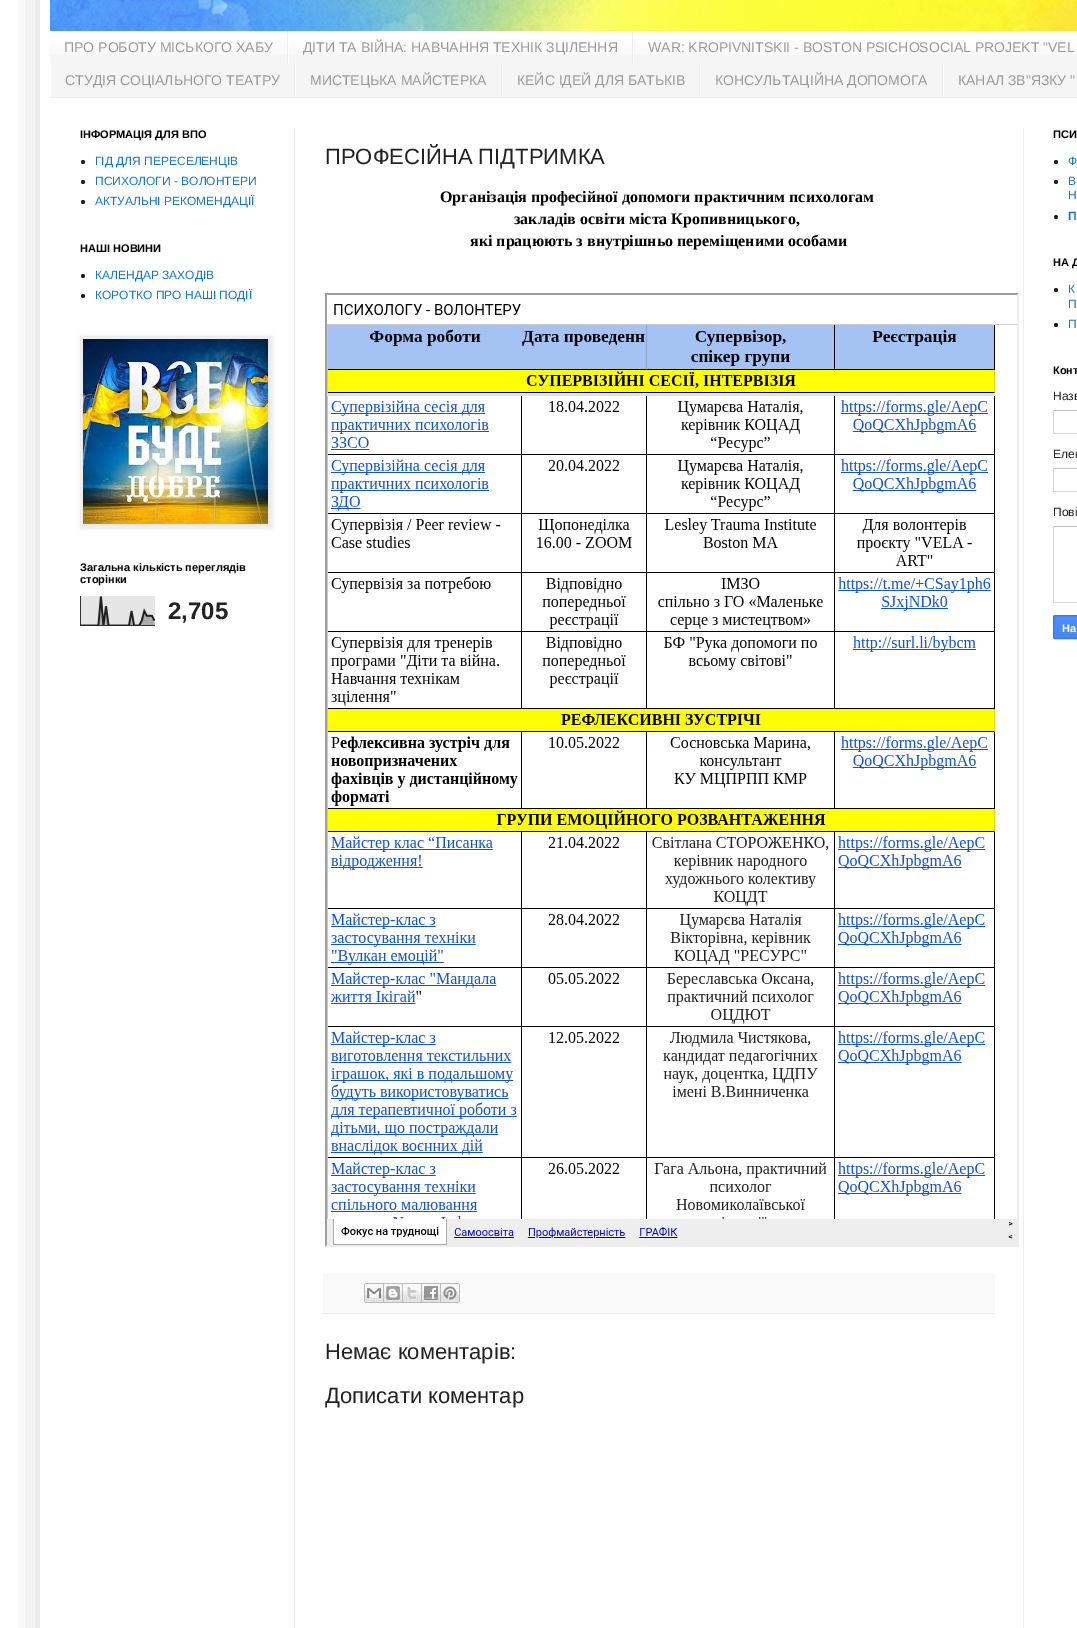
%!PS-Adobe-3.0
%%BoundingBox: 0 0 1077 1628
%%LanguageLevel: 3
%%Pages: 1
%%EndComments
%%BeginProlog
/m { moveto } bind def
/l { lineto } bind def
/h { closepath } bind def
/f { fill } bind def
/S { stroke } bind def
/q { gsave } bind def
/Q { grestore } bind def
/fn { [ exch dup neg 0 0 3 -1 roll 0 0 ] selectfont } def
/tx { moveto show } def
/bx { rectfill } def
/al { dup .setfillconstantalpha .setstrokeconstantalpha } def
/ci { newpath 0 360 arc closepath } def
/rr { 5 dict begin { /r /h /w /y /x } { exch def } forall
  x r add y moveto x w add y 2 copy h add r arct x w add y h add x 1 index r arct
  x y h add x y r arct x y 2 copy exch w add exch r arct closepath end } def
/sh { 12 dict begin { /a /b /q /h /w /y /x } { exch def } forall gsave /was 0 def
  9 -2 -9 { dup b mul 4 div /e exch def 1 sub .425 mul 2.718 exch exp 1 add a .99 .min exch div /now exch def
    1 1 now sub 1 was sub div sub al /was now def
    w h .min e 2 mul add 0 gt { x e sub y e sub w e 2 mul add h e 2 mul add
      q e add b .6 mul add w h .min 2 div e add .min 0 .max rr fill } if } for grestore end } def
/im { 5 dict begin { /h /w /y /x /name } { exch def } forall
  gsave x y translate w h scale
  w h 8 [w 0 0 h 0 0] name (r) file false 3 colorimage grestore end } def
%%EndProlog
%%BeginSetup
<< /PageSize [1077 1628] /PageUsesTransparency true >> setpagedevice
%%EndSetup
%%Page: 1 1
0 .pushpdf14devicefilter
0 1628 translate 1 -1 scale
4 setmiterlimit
1 setgray
0 0 1077 1628 bx
q
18 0 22 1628 rectclip
0 setgray
40 -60 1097 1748 0 20 0.15 sh
Q
(image0.raw) 50 0 1027 31 im
0.961 setgray
50 32 1027 65 bx
(image1.raw) 50 31 1027 24 im
0.933 setgray
50 97 1027 1 bx
287 31 1 33 bx
/LiberationSans-Regular 14 fn
0.6 setgray
(ПРО РОБОТУ МІСЬКОГО ХАБУ) 64 52 tx
0.933 setgray
632 31 1 33 bx
1 setgray
288 42 1 22 bx
0.6 setgray
(ДІТИ ТА ВІЙНА: НАВЧАННЯ ТЕХНІК ЗЦІЛЕННЯ) 303 52 tx
1 setgray
633 42 1 22 bx
0.6 setgray
(WAR: KROPIVNITSKII - BOSTON PSICНOSOCIAL PROJEKT "VEL) 648 52 tx
0.933 setgray
294 64 1 33 bx
1 setgray
50 64 1 33 bx
0.6 setgray
(СТУДІЯ СОЦІАЛЬНОГО ТЕАТРУ) 65 85 tx
0.933 setgray
501 64 1 33 bx
1 setgray
295 64 1 33 bx
0.6 setgray
(МИСТЕЦЬКА МАЙСТЕРКА) 310 85 tx
0.933 setgray
699 64 1 33 bx
1 setgray
502 64 1 33 bx
0.6 setgray
(КЕЙС ІДЕЙ ДЛЯ БАТЬКІВ) 517 85 tx
0.933 setgray
942 64 1 33 bx
1 setgray
700 64 1 33 bx
0.6 setgray
(КОНСУЛЬТАЦІЙНА ДОПОМОГА) 715 85 tx
1 setgray
943 64 1 33 bx
0.6 setgray
(КАНАЛ ЗВ"ЯЗКУ ") 958 85 tx
0.933 setgray
294 128 1 1500 bx
1023 128 1 1500 bx
/LiberationSans-Bold 11 fn
0 setgray
(ІНФОРМАЦІЯ ДЛЯ ВПО) 80 138 tx
0.133 setgray
83 162 2 ci f
/LiberationSans-Regular 12 fn
0.067 0.471 0.8 setrgbcolor
(ГІД ДЛЯ ПЕРЕСЕЛЕНЦІВ) 95 165 tx
0.133 setgray
83 182 2 ci f
0.067 0.471 0.8 setrgbcolor
(ПСИХОЛОГИ - ВОЛОНТЕРИ) 95 185 tx
0.133 setgray
83 202 2 ci f
0.067 0.471 0.8 setrgbcolor
(АКТУАЛЬНІ РЕКОМЕНДАЦІЇ) 95 205 tx
/LiberationSans-Bold 11 fn
0 setgray
(НАШІ НОВИНИ) 80 252 tx
0.133 setgray
83 276 2 ci f
/LiberationSans-Regular 12 fn
0.067 0.471 0.8 setrgbcolor
(КАЛЕНДАР ЗАХОДІВ) 95 279 tx
0.133 setgray
83 296 2 ci f
0.067 0.471 0.8 setrgbcolor
(КОРОТКО ПРО НАШІ ПОДІЇ) 95 299 tx
0 setgray
81 337 191 191 0 2.5 0.1 sh
0.933 setgray
80.5 336.5 190 190 rectstroke
(image2.raw) 83 339 185 185 im
/LiberationSans-Bold 11 fn
0 setgray
(Загальна кількість переглядів) 80 571 tx
(сторінки) 80 583 tx
(image3.raw) 80 596 75 30 im
/LiberationSans-Bold 24 fn
0.133 setgray
(2,705) 168 619 tx
/LiberationSans-Regular 22 fn
(ПРОФЕСІЙНА ПІДТРИМКА) 325 164 tx
/LiberationSerif-Bold 16 fn
0 setgray
(Організація професійної допомоги практичним психологам) 440 202 tx
(закладів освіти міста Кропивницького,) 514 224 tx
(які працюють з внутрішньо переміщеними особами) 470 246 tx
0.624 setgray
325 293 m 1019 293 l 1017 295 l 327 295 l h f
0.933 setgray
1019 293 m 1019 1247 l 1017 1245 l 1017 295 l h f
1019 1247 m 325 1247 l 327 1245 l 1017 1245 l h f
0.624 setgray
325 1247 m 325 293 l 327 295 l 327 1245 l h f
(image4.raw) 327 304 690 941 im
0.976 setgray
323 1273 672 40 bx
0.933 setgray
323 1313 672 1 bx
(image5.raw) 364 1283 20 20 im
(image6.raw) 384 1283 19 20 im
(image7.raw) 403 1283 19 20 im
(image8.raw) 422 1283 19 20 im
(image9.raw) 441 1283 19 20 im
/LiberationSans-Regular 22 fn
0.133 setgray
(Немає коментарів:) 325 1359 tx
(Дописати коментар) 325 1403 tx
/LiberationSans-Bold 11 fn
0 setgray
(ПСИ) 1053 138 tx
0.133 setgray
1056 162 2 ci f
/LiberationSans-Regular 12 fn
0.067 0.471 0.8 setrgbcolor
(Ф) 1068 165 tx
0.133 setgray
1056 182 2 ci f
0.067 0.471 0.8 setrgbcolor
(В) 1068 185 tx
(Н) 1068 199 tx
0.133 setgray
1056 217 2 ci f
/LiberationSans-Bold 12 fn
0.067 0.471 0.8 setrgbcolor
(П) 1068 220 tx
/LiberationSans-Bold 11 fn
0 setgray
(НА Д) 1053 266 tx
0.133 setgray
1056 290 2 ci f
/LiberationSans-Regular 12 fn
0.067 0.471 0.8 setrgbcolor
(К) 1068 293 tx
(П) 1068 308 tx
0.133 setgray
1056 325 2 ci f
0.067 0.471 0.8 setrgbcolor
(П) 1068 328 tx
/LiberationSans-Bold 11 fn
0 setgray
(Конт) 1053 374 tx
/LiberationSans-Regular 12 fn
0.133 setgray
(Назв) 1053 400 tx
0.753 setgray
1053 410 24 1 bx
0.851 setgray
1053 433 24 1 bx
1053 410 1 24 bx
0.133 setgray
(Елек) 1053 458 tx
0.753 setgray
1053 468 24 1 bx
0.851 setgray
1053 491 24 1 bx
1053 468 1 24 bx
0.133 setgray
(Пові) 1053 516 tx
0.753 setgray
1053 526 24 1 bx
0.851 setgray
1053 602 24 1 bx
1053 526 1 77 bx
q 1053 616 m 1077 616 l 1077 638 l 1053 638 l h clip newpath
<< /ShadingType 2 /ColorSpace /DeviceRGB /Coords [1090 616 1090 638] /Extend [true true] /Function << /FunctionType 2 /Domain [0 1] /C0 [0.302 0.565 0.996] /C1 [0.278 0.529 0.929] /N 1 >> >> shfill Q
0.188 0.475 0.929 setrgbcolor
1053.5 615.5 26 23 1.5 rr S
/LiberationSans-Bold 11 fn
1 setgray
(На) 1062 632 tx
.poppdf14devicefilter showpage
%%EOF
